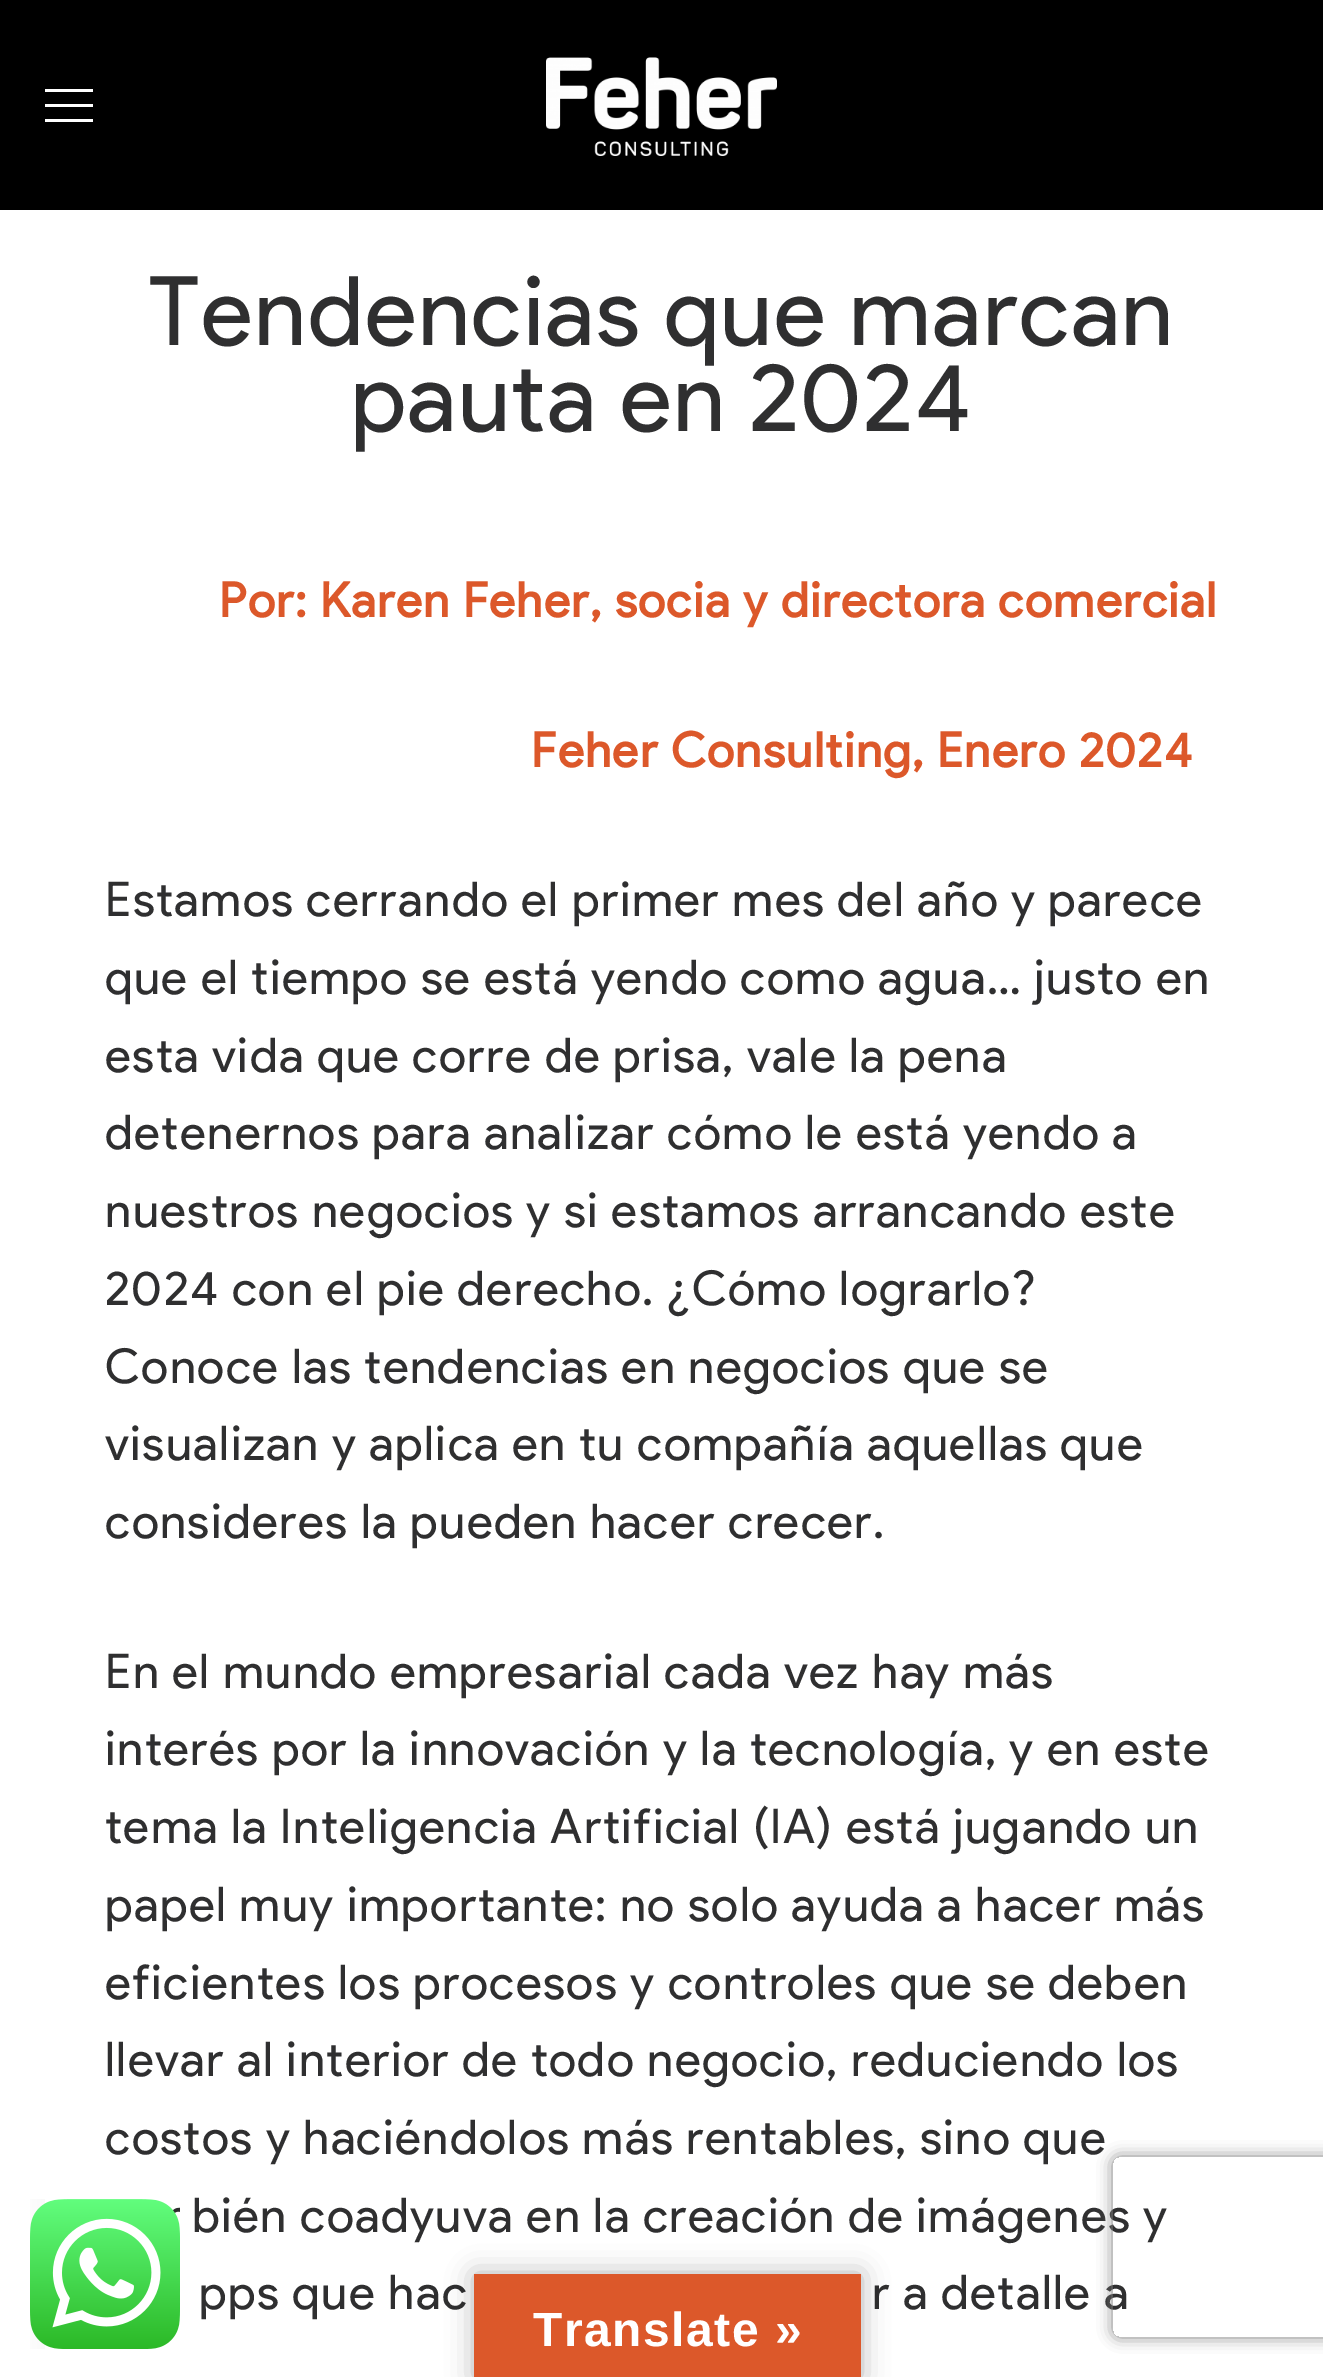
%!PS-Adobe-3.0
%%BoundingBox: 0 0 1323 2377
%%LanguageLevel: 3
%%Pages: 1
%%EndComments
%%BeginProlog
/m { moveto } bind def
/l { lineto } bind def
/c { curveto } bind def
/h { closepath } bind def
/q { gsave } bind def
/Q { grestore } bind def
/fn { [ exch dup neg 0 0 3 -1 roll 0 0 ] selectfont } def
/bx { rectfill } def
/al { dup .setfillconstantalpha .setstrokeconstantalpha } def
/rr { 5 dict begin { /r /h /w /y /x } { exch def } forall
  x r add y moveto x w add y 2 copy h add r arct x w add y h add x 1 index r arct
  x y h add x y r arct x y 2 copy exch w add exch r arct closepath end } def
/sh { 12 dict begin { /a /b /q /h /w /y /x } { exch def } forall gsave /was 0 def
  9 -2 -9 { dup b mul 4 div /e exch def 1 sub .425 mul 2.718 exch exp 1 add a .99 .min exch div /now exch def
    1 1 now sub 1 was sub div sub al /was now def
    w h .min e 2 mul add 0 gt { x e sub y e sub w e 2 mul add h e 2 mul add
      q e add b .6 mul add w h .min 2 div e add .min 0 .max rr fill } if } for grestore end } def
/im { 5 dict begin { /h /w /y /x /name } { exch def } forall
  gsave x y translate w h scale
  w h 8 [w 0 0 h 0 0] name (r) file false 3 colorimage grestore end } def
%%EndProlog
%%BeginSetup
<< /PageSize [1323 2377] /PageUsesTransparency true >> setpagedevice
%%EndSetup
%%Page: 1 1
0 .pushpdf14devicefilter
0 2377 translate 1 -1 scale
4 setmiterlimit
1 setgray
0 0 1323 2377 bx
0 setgray
0 0 1323 210 bx
1 setgray
45 89 48 3 bx
45 104 48 3 bx
45 119 48 3 bx
(image0.raw) 546 57 231 99 im
/ProductSans-Regular 96 fn
0.184 0.184 0.188 setrgbcolor
148 345 m 1.5 0 (Tendencias que marcan) ashow
351 431 m 1.5 0 (pauta en 2024) ashow
/ProductSans-Bold 48 fn
0.863 0.345 0.165 setrgbcolor
219 617 m 1.5 0 (Por: Karen Feher, socia y directora comercial) ashow
531 767 m 1.5 0 (Feher Consulting, Enero 2024) ashow
/ProductSans-Regular 48 fn
0.184 0.184 0.188 setrgbcolor
105 916 m 1.5 0 (Estamos cerrando el primer mes del año y parece) ashow
105 994 m 1.5 0 (que el tiempo se está yendo como agua… justo en) ashow
105 1072 m 1.5 0 (esta vida que corre de prisa, vale la pena) ashow
105 1149 m 1.5 0 (detenernos para analizar cómo le está yendo a) ashow
105 1227 m 1.5 0 (nuestros negocios y si estamos arrancando este) ashow
105 1305 m 1.5 0 (2024 con el pie derecho. ¿Cómo lograrlo?) ashow
105 1383 m 1.5 0 (Conoce las tendencias en negocios que se) ashow
105 1460 m 1.5 0 (visualizan y aplica en tu compañía aquellas que) ashow
105 1538 m 1.5 0 (consideres la pueden hacer crecer.) ashow
105 1688 m 1.5 0 (En el mundo empresarial cada vez hay más) ashow
105 1765 m 1.5 0 (interés por la innovación y la tecnología, y en este) ashow
105 1843 m 1.5 0 (tema la Inteligencia Artificial \(IA\) está jugando un) ashow
105 1921 m 1.5 0 (papel muy importante: no solo ayuda a hacer más) ashow
105 1999 m 1.5 0 (eficientes los procesos y controles que se deben) ashow
105 2076 m 1.5 0 (llevar al interior de todo negocio, reduciendo los) ashow
105 2154 m 1.5 0 (costos y haciéndolos más rentables, sino que) ashow
192 2232 m 1.5 0 (bién coadyuva en la creación de imágenes y) ashow
199 2309 m 1.5 0 (pps que hac) ashow
872 2309 m 1.5 0 (r a detalle a) ashow
(image1.raw) 30 2199 150 150 im
0 setgray
474 2274 387 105 0 13.5 0.3 sh
0.863 0.345 0.165 setrgbcolor
474 2274 387 103 bx
/LiberationSans-Bold 48 fn
1 setgray
533 2346 m 1.5 0 (Translate ») ashow
q
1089 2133 m 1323 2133 l 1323 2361 l 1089 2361 l h 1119 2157 m 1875 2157 l 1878.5 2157 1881 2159.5 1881 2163 c 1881 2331 l 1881 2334.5 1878.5 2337 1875 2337 c 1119 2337 l 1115.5 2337 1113 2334.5 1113 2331 c 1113 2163 l 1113 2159.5 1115.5 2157 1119 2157 c h eoclip newpath
0.502 setgray
1113 2157 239 180 6 7.5 1 sh
Q
.poppdf14devicefilter showpage
%%EOF
